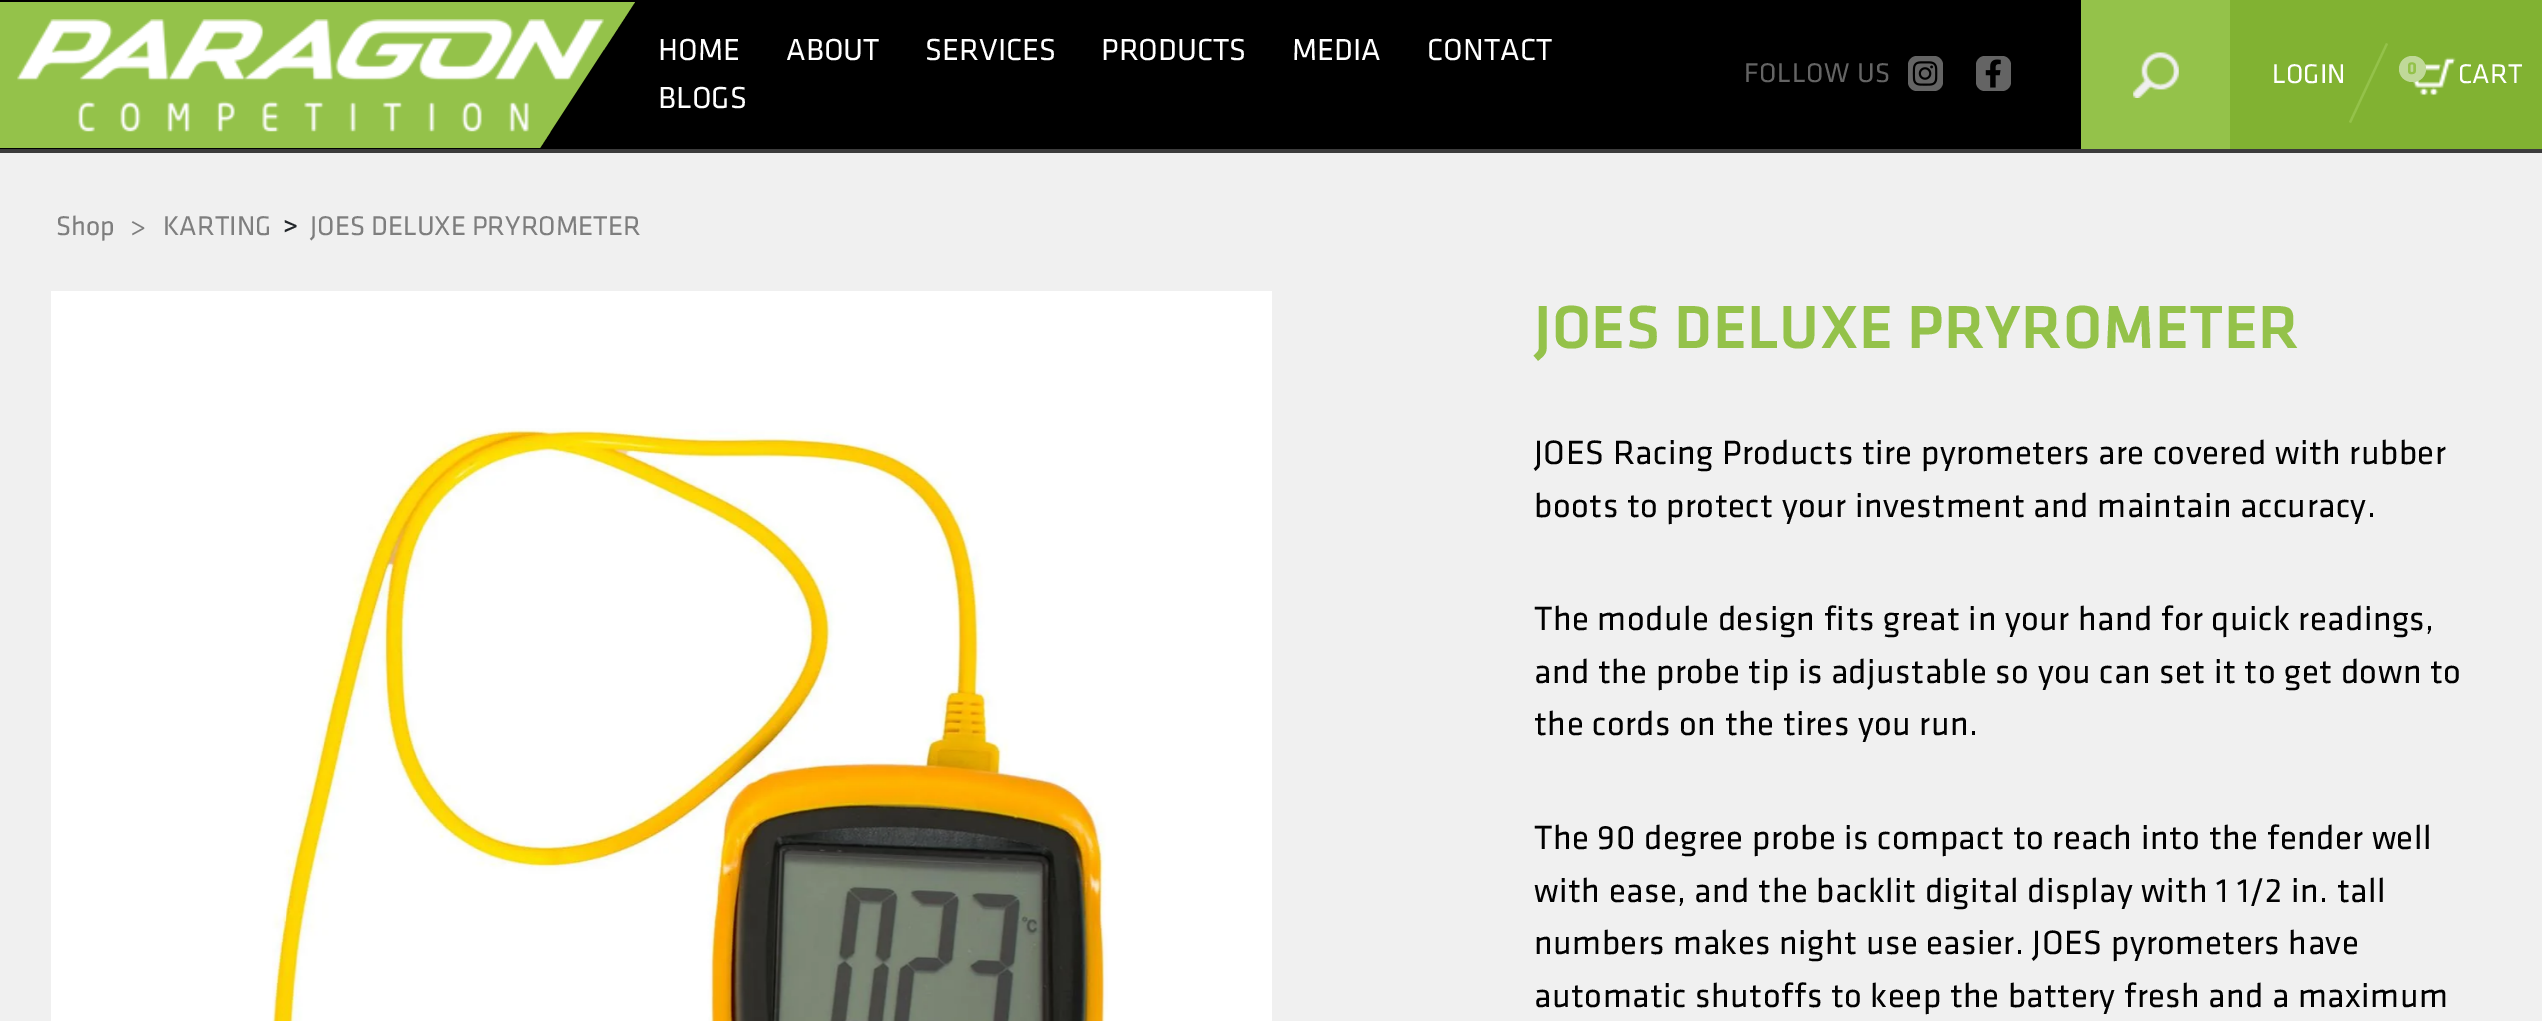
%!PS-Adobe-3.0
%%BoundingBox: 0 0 2542 1021
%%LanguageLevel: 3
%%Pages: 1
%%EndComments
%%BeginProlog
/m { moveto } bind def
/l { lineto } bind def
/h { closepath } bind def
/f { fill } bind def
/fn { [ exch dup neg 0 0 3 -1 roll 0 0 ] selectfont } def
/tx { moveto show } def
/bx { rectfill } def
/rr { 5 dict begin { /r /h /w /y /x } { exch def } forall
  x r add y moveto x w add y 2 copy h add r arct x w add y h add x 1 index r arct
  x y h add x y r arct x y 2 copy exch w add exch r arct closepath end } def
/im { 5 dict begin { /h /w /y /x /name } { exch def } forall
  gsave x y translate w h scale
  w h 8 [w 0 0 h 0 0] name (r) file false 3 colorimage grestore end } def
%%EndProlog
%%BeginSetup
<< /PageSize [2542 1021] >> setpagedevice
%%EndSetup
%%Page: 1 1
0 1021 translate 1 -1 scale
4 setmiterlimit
0.941 setgray
0 0 2542 1021 bx
0 setgray
0 0 2081 149 bx
0.235 setgray
0 149 2542 4 bx
0.58 0.761 0.29 setrgbcolor
0 2 m 0 148 l 540 148 l 635 2 l h f
(image0.raw) 17 19 587 113 im
/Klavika-Regular 31.5 fn
1 setgray
(HOME) 658 60 tx
(ABOUT) 786 60 tx
(SERVICES) 925 60 tx
(PRODUCTS) 1101 60 tx
(MEDIA) 1292 60 tx
(CONTACT) 1427 60 tx
(BLOGS) 658 108 tx
/Klavika-Regular 28 fn
0.392 setgray
1744 82 m 0.53 0 (FOLLOW US) ashow
1908 56 35 35 9 rr f
(image1.raw) 1912 61 26 25 im
1976 56 35 35 9 rr f
(image2.raw) 1985 59 16 29 im
0.58 0.761 0.29 setrgbcolor
2081 0 149 149 bx
(image3.raw) 2133 52 46 46 im
0.506 0.698 0.196 setrgbcolor
2230 0 312 149 bx
1 setgray
(LOGIN) 2272 83 tx
0.58 0.761 0.29 setrgbcolor
2386 43 m 2388 44 l 2351 123 l 2349 122 l h f
(image4.raw) 2413 57 43 39 im
0.753 0.851 0.6 setrgbcolor
2399 56 27 26 13 rr f
/Klavika-Bold 18 fn
0.58 0.761 0.29 setrgbcolor
2407 74 m 0.53 0 (0) ashow
/Klavika-Regular 28 fn
1 setgray
(CART) 2458 83 tx
0.494 setgray
(Shop) 56 235 tx
(>) 130 235 tx
(KARTING) 163 235 tx
/Roboto-Regular 28 fn
0.129 0.145 0.161 setrgbcolor
(>) 283 235 tx
/Klavika-Regular 28 fn
0.494 setgray
(JOES DELUXE PRYROMETER) 310 235 tx
1 setgray
51 291 1221 730 bx
(image5.raw) 272 428 836 593 im
/Klavika-Medium 63 fn
0.58 0.761 0.29 setrgbcolor
1534 348 m 0.53 0 (JOES DELUXE PRYROMETER) ashow
/Klavika-Regular 35 fn
0.004 setgray
1534 464 m 0.53 0 (JOES Racing Products tire pyrometers are covered with rubber) ashow
1534 517 m 0.53 0 (boots to protect your investment and maintain accuracy.) ashow
1534 630 m 0.53 0 (The module design fits great in your hand for quick readings,) ashow
1534 683 m 0.53 0 (and the probe tip is adjustable so you can set it to get down to) ashow
1534 735 m 0.53 0 (the cords on the tires you run.) ashow
1534 849 m 0.53 0 (The 90 degree probe is compact to reach into the fender well) ashow
1534 902 m 0.53 0 (with ease, and the backlit digital display with 1 1/2 in. tall) ashow
1534 954 m 0.53 0 (numbers makes night use easier. JOES pyrometers have) ashow
1534 1007 m 0.53 0 (automatic shutoffs to keep the battery fresh and a maximum) ashow
showpage
%%EOF
